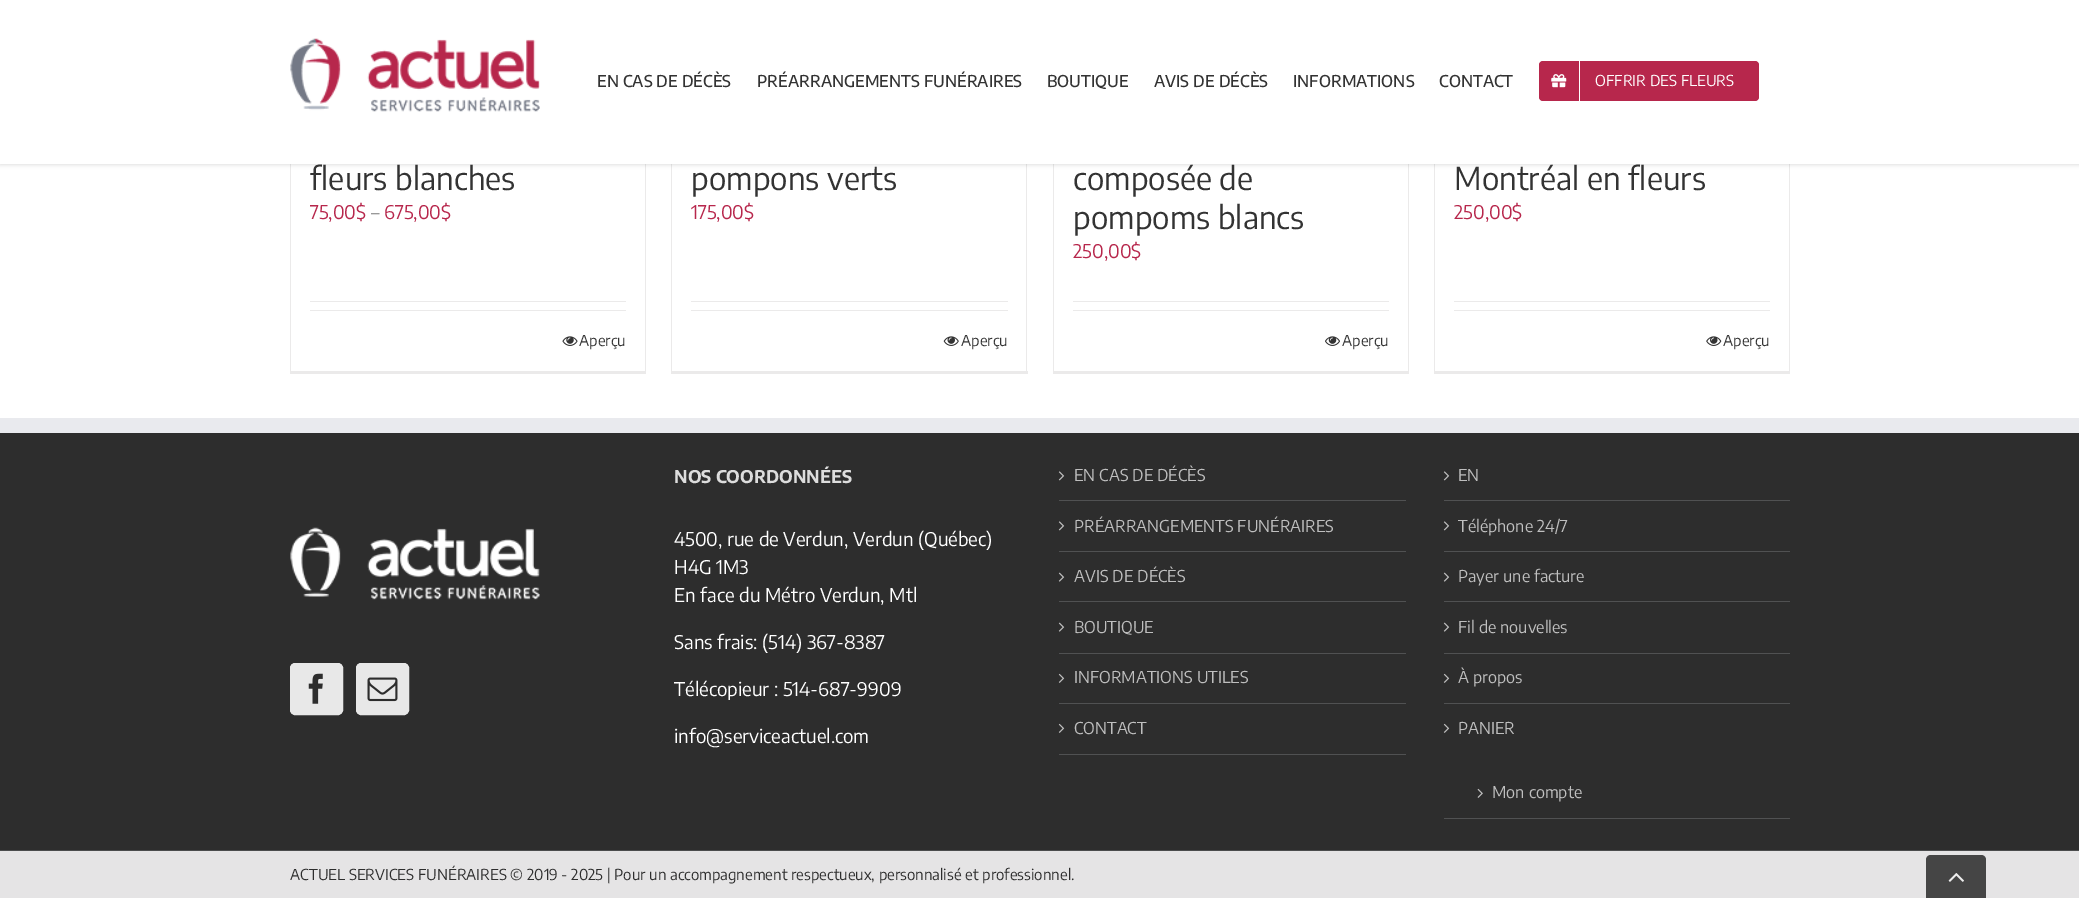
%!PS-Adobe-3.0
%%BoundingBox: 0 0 2079 898
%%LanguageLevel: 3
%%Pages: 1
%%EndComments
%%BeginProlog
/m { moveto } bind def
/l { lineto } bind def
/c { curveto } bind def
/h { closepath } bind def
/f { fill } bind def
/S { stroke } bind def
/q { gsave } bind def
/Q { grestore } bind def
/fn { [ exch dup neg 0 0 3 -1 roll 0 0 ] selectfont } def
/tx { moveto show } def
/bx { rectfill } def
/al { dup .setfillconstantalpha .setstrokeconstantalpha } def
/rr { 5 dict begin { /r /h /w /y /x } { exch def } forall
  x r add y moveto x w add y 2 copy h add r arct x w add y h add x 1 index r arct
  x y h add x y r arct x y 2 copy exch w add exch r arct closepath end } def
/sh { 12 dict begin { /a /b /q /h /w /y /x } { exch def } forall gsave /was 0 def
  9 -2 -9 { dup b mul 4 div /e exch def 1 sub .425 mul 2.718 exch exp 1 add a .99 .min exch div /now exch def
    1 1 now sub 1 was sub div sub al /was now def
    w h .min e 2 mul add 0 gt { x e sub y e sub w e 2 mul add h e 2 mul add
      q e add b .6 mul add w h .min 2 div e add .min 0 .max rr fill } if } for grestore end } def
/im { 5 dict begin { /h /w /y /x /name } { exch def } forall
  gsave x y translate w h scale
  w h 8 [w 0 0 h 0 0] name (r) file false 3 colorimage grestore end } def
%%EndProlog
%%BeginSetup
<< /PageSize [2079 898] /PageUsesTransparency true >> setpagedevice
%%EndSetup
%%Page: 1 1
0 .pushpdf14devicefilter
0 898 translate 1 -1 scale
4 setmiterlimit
1 setgray
0 0 2079 898 bx
0.922 0.918 0.918 setrgbcolor
645 164 1 210 bx
290 371 356 3 bx
290 164 1 210 bx
1026 164 1 210 bx
671 371 357 3 bx
671 164 1 210 bx
1408 164 1 210 bx
1053 371 356 3 bx
1053 164 1 210 bx
1789 164 1 210 bx
1434 371 356 3 bx
1434 164 1 210 bx
0 setgray
0 1 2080 164 0 2 0.12 sh
1 setgray
0 0 2079 164 bx
(image0.raw) 290 38 250 74 im
/EncodeSansCondensed-Medium 16.25 fn
0.2 setgray
(EN CAS DE DÉCÈS) 597 87 tx
(PRÉARRANGEMENTS FUNÉRAIRES) 757 87 tx
(BOUTIQUE) 1047 87 tx
(AVIS DE DÉCÈS) 1154 87 tx
(INFORMATIONS) 1293 87 tx
(CONTACT) 1439 87 tx
0.718 0.153 0.298 setrgbcolor
1539 61 220 40 4 rr f
1 setgray
1579 61 1 40 bx
(image1.raw) 1551 74 16 14 im
/EncodeSansCondensed-Regular 15 fn
(OFFRIR DES FLEURS) 1595 86 tx
/EncodeSansCondensed-Regular 31.25 fn
0.2 setgray
(fleurs blanches) 310 190 tx
/EncodeSansCondensed-Regular 18.75 fn
0.718 0.153 0.298 setrgbcolor
(75,00$) 310 219 tx
0.455 setgray
(–) 371 219 tx
0.718 0.153 0.298 setrgbcolor
(675,00$) 384 219 tx
0.922 0.918 0.918 setrgbcolor
310 301 316 1 bx
310 310 316 1 bx
(image2.raw) 562 336 16 10 im
/EncodeSansCondensed-Regular 15 fn
0.2 setgray
(Aperçu) 579 346 tx
/EncodeSansCondensed-Regular 31.25 fn
(pompons verts) 691 190 tx
/EncodeSansCondensed-Regular 18.75 fn
0.718 0.153 0.298 setrgbcolor
(175,00$) 691 219 tx
0.922 0.918 0.918 setrgbcolor
691 301 317 1 bx
691 310 317 1 bx
(image3.raw) 943 336 16 10 im
/EncodeSansCondensed-Regular 15 fn
0.2 setgray
(Aperçu) 961 346 tx
/EncodeSansCondensed-Regular 31.25 fn
(composée de) 1073 190 tx
(pompoms blancs) 1073 229 tx
/EncodeSansCondensed-Regular 18.75 fn
0.718 0.153 0.298 setrgbcolor
(250,00$) 1073 258 tx
0.922 0.918 0.918 setrgbcolor
1073 301 316 1 bx
1073 310 316 1 bx
(image4.raw) 1325 336 15 10 im
/EncodeSansCondensed-Regular 15 fn
0.2 setgray
(Aperçu) 1342 346 tx
/EncodeSansCondensed-Regular 31.25 fn
(Montréal en fleurs) 1454 190 tx
/EncodeSansCondensed-Regular 18.75 fn
0.718 0.153 0.298 setrgbcolor
(250,00$) 1454 219 tx
0.922 0.918 0.918 setrgbcolor
1454 301 316 1 bx
1454 310 316 1 bx
(image5.raw) 1706 336 16 10 im
/EncodeSansCondensed-Regular 15 fn
0.2 setgray
(Aperçu) 1723 346 tx
0.176 setgray
0 433 2079 417 bx
0.914 0.918 0.933 setrgbcolor
0 418 2079 15 bx
(image6.raw) 290 527 250 73 im
0.91 setgray
290.5 663.5 52 51 4.5 rr q f Q
S
(image7.raw) 308 673 15 31 im
356.5 663.5 52 51 4.5 rr q f Q
S
(image8.raw) 367 677 31 25 im
/EncodeSansCondensed-Bold 17.5 fn
0.867 setgray
(NOS COORDONNÉES) 674 483 tx
/EncodeSansCondensed-Regular 18.75 fn
1 setgray
(4500, rue de Verdun, Verdun \(Québec\)) 674 546 tx
(H4G 1M3) 674 574 tx
(En face du Métro Verdun, Mtl) 674 602 tx
(Sans frais: \(514\) 367-8387) 674 649 tx
(Télécopieur : 514-687-9909) 674 696 tx
(info@serviceactuel.com) 674 743 tx
0.314 0.318 0.322 setrgbcolor
1059 500 347 1 bx
(image9.raw) 1058 471 7 10 im
/EncodeSansCondensed-Regular 16.25 fn
0.749 setgray
(EN CAS DE DÉCÈS) 1074 481 tx
0.314 0.318 0.322 setrgbcolor
1059 551 347 1 bx
(image9.raw) 1058 521 7 10 im
0.749 setgray
(PRÉARRANGEMENTS FUNÉRAIRES) 1074 532 tx
0.314 0.318 0.322 setrgbcolor
1059 601 347 1 bx
(image10.raw) 1058 572 7 10 im
0.749 setgray
(AVIS DE DÉCÈS) 1074 582 tx
0.314 0.318 0.322 setrgbcolor
1059 653 347 1 bx
(image10.raw) 1058 622 7 10 im
0.749 setgray
(BOUTIQUE) 1074 633 tx
0.314 0.318 0.322 setrgbcolor
1059 703 347 1 bx
(image11.raw) 1058 673 7 10 im
0.749 setgray
(INFORMATIONS UTILES) 1074 683 tx
0.314 0.318 0.322 setrgbcolor
1059 754 347 1 bx
(image11.raw) 1058 723 7 10 im
0.749 setgray
(CONTACT) 1074 734 tx
0.314 0.318 0.322 setrgbcolor
1444 500 346 1 bx
(image9.raw) 1443 471 7 10 im
0.749 setgray
(EN) 1458 481 tx
0.314 0.318 0.322 setrgbcolor
1444 551 346 1 bx
(image9.raw) 1443 521 7 10 im
0.749 setgray
(Téléphone 24/7) 1458 532 tx
0.314 0.318 0.322 setrgbcolor
1444 601 346 1 bx
(image10.raw) 1443 572 7 10 im
0.749 setgray
(Payer une facture) 1458 582 tx
0.314 0.318 0.322 setrgbcolor
1444 653 346 1 bx
(image10.raw) 1443 622 7 10 im
0.749 setgray
(Fil de nouvelles) 1458 633 tx
0.314 0.318 0.322 setrgbcolor
1444 703 346 1 bx
(image11.raw) 1443 673 7 10 im
0.749 setgray
(À propos) 1458 683 tx
0.314 0.318 0.322 setrgbcolor
1444 818 346 1 bx
(image11.raw) 1443 723 7 10 im
0.749 setgray
(PANIER) 1458 734 tx
(image12.raw) 1477 788 6 10 im
(Mon compte) 1492 798 tx
0.898 0.894 0.898 setrgbcolor
0 851 2079 47 bx
0.294 0.298 0.302 setrgbcolor
0 850 2079 1 bx
/EncodeSansCondensed-Regular 15 fn
0.176 setgray
(ACTUEL SERVICES FUNÉRAIRES © 2019 - 2025 | Pour un accompagnement respectueux, personnalisé et professionnel.) 290 880 tx
0.271 setgray
1931 855 m 1981 855 l 1984 855 1986 857 1986 860 c 1986 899 l 1926 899 l 1926 860 l 1926 857 1928 855 1931 855 c h f
(image13.raw) 1948 873 16 9 im
.poppdf14devicefilter showpage
%%EOF
